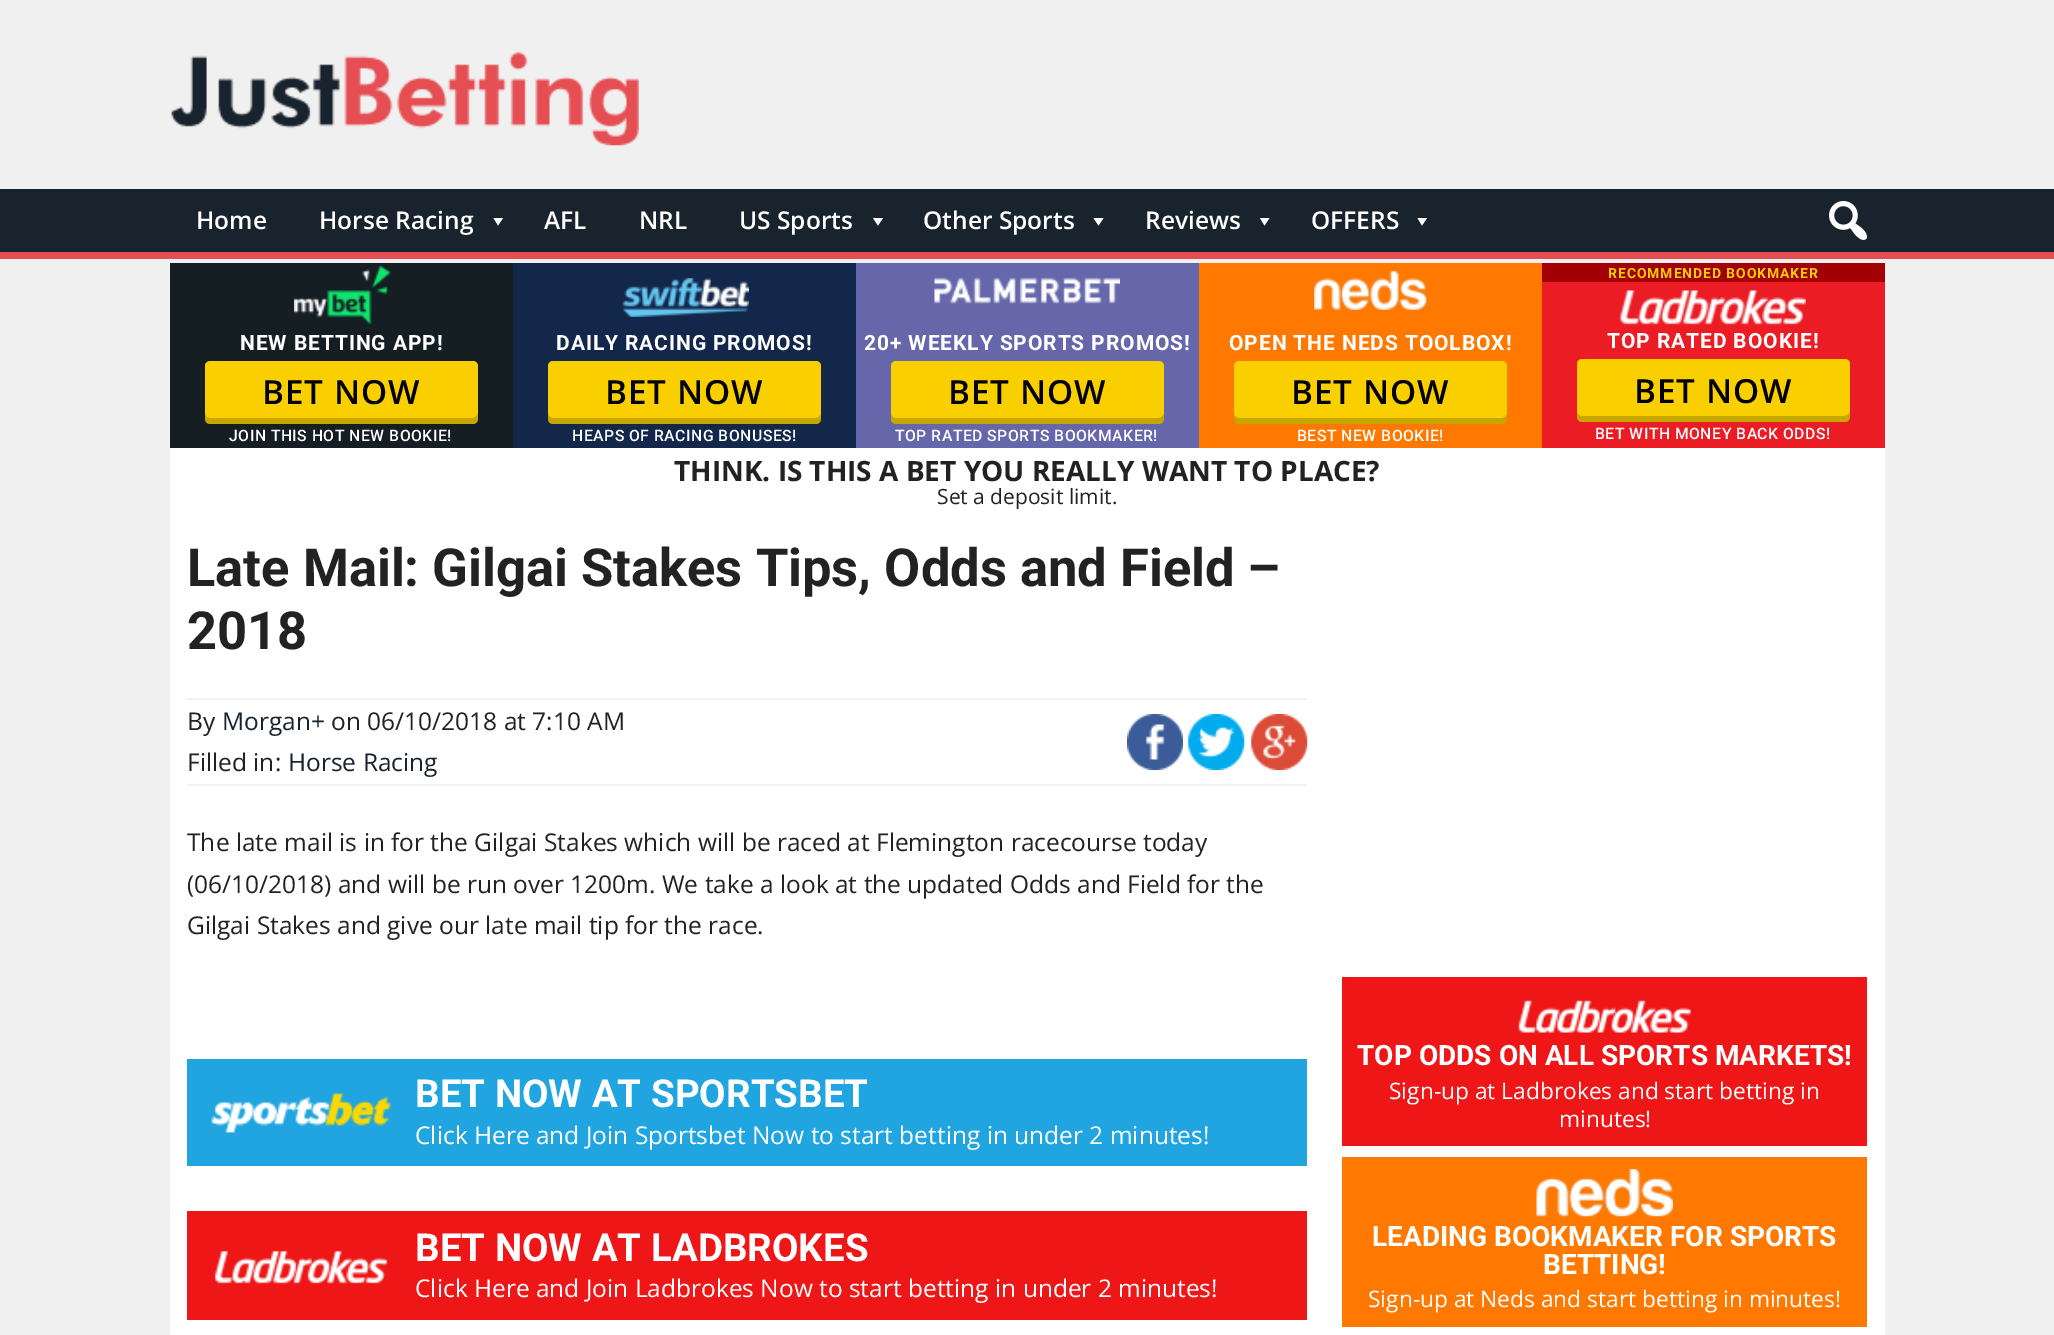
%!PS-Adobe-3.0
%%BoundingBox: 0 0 2054 1335
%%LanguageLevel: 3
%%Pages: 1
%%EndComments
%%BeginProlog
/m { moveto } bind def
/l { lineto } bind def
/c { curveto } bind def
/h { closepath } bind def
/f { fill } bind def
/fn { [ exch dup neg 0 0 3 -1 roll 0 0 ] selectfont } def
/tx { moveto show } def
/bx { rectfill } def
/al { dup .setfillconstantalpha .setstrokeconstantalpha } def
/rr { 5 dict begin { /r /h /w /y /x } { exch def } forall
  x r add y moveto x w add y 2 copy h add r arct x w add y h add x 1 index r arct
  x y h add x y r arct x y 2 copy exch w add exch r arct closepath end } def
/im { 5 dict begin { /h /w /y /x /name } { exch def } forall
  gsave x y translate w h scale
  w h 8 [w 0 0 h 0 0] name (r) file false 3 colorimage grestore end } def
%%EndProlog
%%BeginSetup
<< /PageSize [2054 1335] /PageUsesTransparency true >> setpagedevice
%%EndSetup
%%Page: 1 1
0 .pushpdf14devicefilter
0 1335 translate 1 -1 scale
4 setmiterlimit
0.941 setgray
0 0 2054 1335 bx
(image0.raw) 171 52 468 94 im
0.098 0.137 0.176 setrgbcolor
0 189 2054 63 bx
0.898 0.306 0.325 setrgbcolor
0 252 2054 7 bx
/OpenSans-SemiBold 24.5 fn
1 setgray
(Home) 196 229 tx
(Horse Racing) 319 229 tx
503 218 m 498 225.5 l 493.5 218 l h f
(AFL) 544 229 tx
(NRL) 639 229 tx
(US Sports) 739 229 tx
883 218 m 878 225.5 l 873 218 l h f
(Other Sports) 923 229 tx
1103.5 218 m 1098.5 225.5 l 1093.5 218 l h f
(Reviews) 1145 229 tx
1269.5 218 m 1264.5 225.5 l 1260 218 l h f
(OFFERS) 1311 229 tx
1427 218 m 1422 225.5 l 1417.5 218 l h f
(image1.raw) 1829 201 38 39 im
170 448 1715 887 bx
0.082 0.122 0.137 setrgbcolor
170 263 343 185 bx
(image2.raw) 294 266 97 58 im
/Roboto-Bold 21 fn
1 setgray
240 350 m 0.9 0 (NEW BETTING APP!) ashow
0.976 0.812 0 setrgbcolor
205 361 273 63 5 rr f
0.2 al
0 setgray
205 413 m 205 419 l 205 422 207 424 210 424 c 473 424 l 476 424 478 422 478 419 c 478 413 l 478 416 475 418 472 418 c 210 418 l 207 418 205 416 205 413 c h f
/OpenSans-SemiBold 33.25 fn
1 al
262 404 m 1 0 (BET NOW) ashow
/Roboto-Medium 15.75 fn
1 setgray
229 441 m 0.5 0 (JOIN THIS HOT NEW BOOKIE!) ashow
0.075 0.153 0.294 setrgbcolor
513 263 343 185 bx
(image3.raw) 622 278 127 39 im
/Roboto-Bold 21 fn
1 setgray
556 350 m 0.9 0 (DAILY RACING PROMOS!) ashow
0.976 0.812 0 setrgbcolor
548 361 273 63 5 rr f
0.2 al
0 setgray
548 413 m 548 419 l 548 422 550 424 553 424 c 816 424 l 819 424 821 422 821 419 c 821 413 l 821 416 818 418 816 418 c 553 418 l 550 418 548 416 548 413 c h f
/OpenSans-SemiBold 33.25 fn
1 al
605 404 m 1 0 (BET NOW) ashow
/Roboto-Medium 15.75 fn
1 setgray
572 441 m 0.5 0 (HEAPS OF RACING BONUSES!) ashow
0.4 0.404 0.671 setrgbcolor
856 263 343 185 bx
(image4.raw) 934 277 186 27 im
/Roboto-Bold 21 fn
1 setgray
864 350 m 0.9 0 (20+ WEEKLY SPORTS PROMOS!) ashow
0.976 0.812 0 setrgbcolor
891 361 273 63 5 rr f
0.2 al
0 setgray
891 413 m 891 419 l 891 422 893 424 896 424 c 1159 424 l 1162 424 1164 422 1164 419 c 1164 413 l 1164 416 1161 418 1158 418 c 896 418 l 893 418 891 416 891 413 c h f
/OpenSans-SemiBold 33.25 fn
1 al
948 404 m 1 0 (BET NOW) ashow
/Roboto-Medium 15.75 fn
1 setgray
895 441 m 0.5 0 (TOP RATED SPORTS BOOKMAKER!) ashow
1 0.471 0 setrgbcolor
1199 263 343 185 bx
(image5.raw) 1314 271 113 39 im
/Roboto-Bold 21 fn
1 setgray
1229 350 m 0.9 0 (OPEN THE NEDS TOOLBOX!) ashow
0.976 0.812 0 setrgbcolor
1234 361 273 63 5 rr f
0.2 al
0 setgray
1234 413 m 1234 419 l 1234 422 1236 424 1239 424 c 1502 424 l 1505 424 1507 422 1507 419 c 1507 413 l 1507 416 1504 418 1502 418 c 1239 418 l 1236 418 1234 416 1234 413 c h f
/OpenSans-SemiBold 33.25 fn
1 al
1291 404 m 1 0 (BET NOW) ashow
/Roboto-Medium 15.75 fn
1 setgray
1297 441 m 0.5 0 (BEST NEW BOOKIE!) ashow
0.922 0.11 0.141 setrgbcolor
1542 282 343 166 bx
(image6.raw) 1620 290 186 35 im
0.635 0 0.024 setrgbcolor
1542 263 343 19 bx
/Roboto-Bold 14 fn
0.976 0.812 0 setrgbcolor
1608 278 m 0.9 0 (RECOMMENDED BOOKMAKER) ashow
/Roboto-Bold 21 fn
1 setgray
1607 348 m 0.9 0 (TOP RATED BOOKIE!) ashow
0.976 0.812 0 setrgbcolor
1577 359 273 63 5 rr f
0.2 al
0 setgray
1577 411 m 1577 417 l 1577 420 1579 422 1582 422 c 1845 422 l 1848 422 1850 420 1850 417 c 1850 411 l 1850 414 1847 416 1844 416 c 1582 416 l 1579 416 1577 414 1577 411 c h f
/OpenSans-SemiBold 33.25 fn
1 al
1634 403 m 1 0 (BET NOW) ashow
/Roboto-Medium 15.75 fn
1 setgray
1595 439 m 0.5 0 (BET WITH MONEY BACK ODDS!) ashow
/OpenSans-Bold 28 fn
0.133 setgray
(THINK. IS THIS A BET YOU REALLY WANT TO PLACE?) 674 481 tx
/OpenSans-Regular 21 fn
(Set a deposit limit.) 937 504 tx
/Roboto-Bold 52.5 fn
(Late Mail: Gilgai Stakes Tips, Odds and Field –) 187 586 tx
(2018) 187 649 tx
0.945 setgray
187 698 1120 2 bx
187 784 1120 2 bx
/OpenSans-Regular 24.5 fn
0.133 setgray
(By) 187 730 tx
0.098 0.137 0.176 setrgbcolor
(Morgan+) 222 730 tx
0.133 setgray
(on 06/10/2018 at 7:10 AM) 331 730 tx
(Filled in:) 187 771 tx
0.098 0.137 0.176 setrgbcolor
(Horse Racing) 288 771 tx
(image7.raw) 1127 714 56 56 im
(image8.raw) 1188 714 57 56 im
(image9.raw) 1251 714 57 56 im
0.133 setgray
(The late mail is in for the Gilgai Stakes which will be raced at Flemington racecourse today) 187 851 tx
(\(06/10/2018\) and will be run over 1200m. We take a look at the updated Odds and Field for the) 187 893 tx
(Gilgai Stakes and give our late mail tip for the race.) 187 934 tx
0.125 0.647 0.878 setrgbcolor
187 1059 1120 107 bx
(image10.raw) 211 1093 180 40 im
/Roboto-Bold 38.5 fn
1 setgray
(BET NOW AT SPORTSBET) 415 1107 tx
/OpenSans-Regular 24.5 fn
(Click Here and Join Sportsbet Now to start betting in under 2 minutes!) 415 1144 tx
0.933 0.086 0.09 setrgbcolor
187 1211 1120 109 bx
(image11.raw) 214 1250 174 34 im
/Roboto-Bold 38.5 fn
1 setgray
(BET NOW AT LADBROKES) 415 1261 tx
/OpenSans-Regular 24.5 fn
(Click Here and Join Ladbrokes Now to start betting in under 2 minutes!) 415 1297 tx
0.933 0.086 0.09 setrgbcolor
1342 977 525 169 bx
(image12.raw) 1518 1000 173 33 im
/Roboto-Bold 28 fn
1 setgray
(TOP ODDS ON ALL SPORTS MARKETS!) 1357 1065 tx
/OpenSans-Regular 22.75 fn
(Sign-up at Ladbrokes and start betting in) 1389 1099 tx
(minutes!) 1559 1127 tx
1 0.475 0 setrgbcolor
1342 1157 525 170 bx
(image13.raw) 1536 1169 137 48 im
/Roboto-Bold 28 fn
1 setgray
(LEADING BOOKMAKER FOR SPORTS) 1372 1246 tx
(BETTING!) 1543 1274 tx
/OpenSans-Regular 22.75 fn
(Sign-up at Neds and start betting in minutes!) 1368 1307 tx
.poppdf14devicefilter showpage
%%EOF
